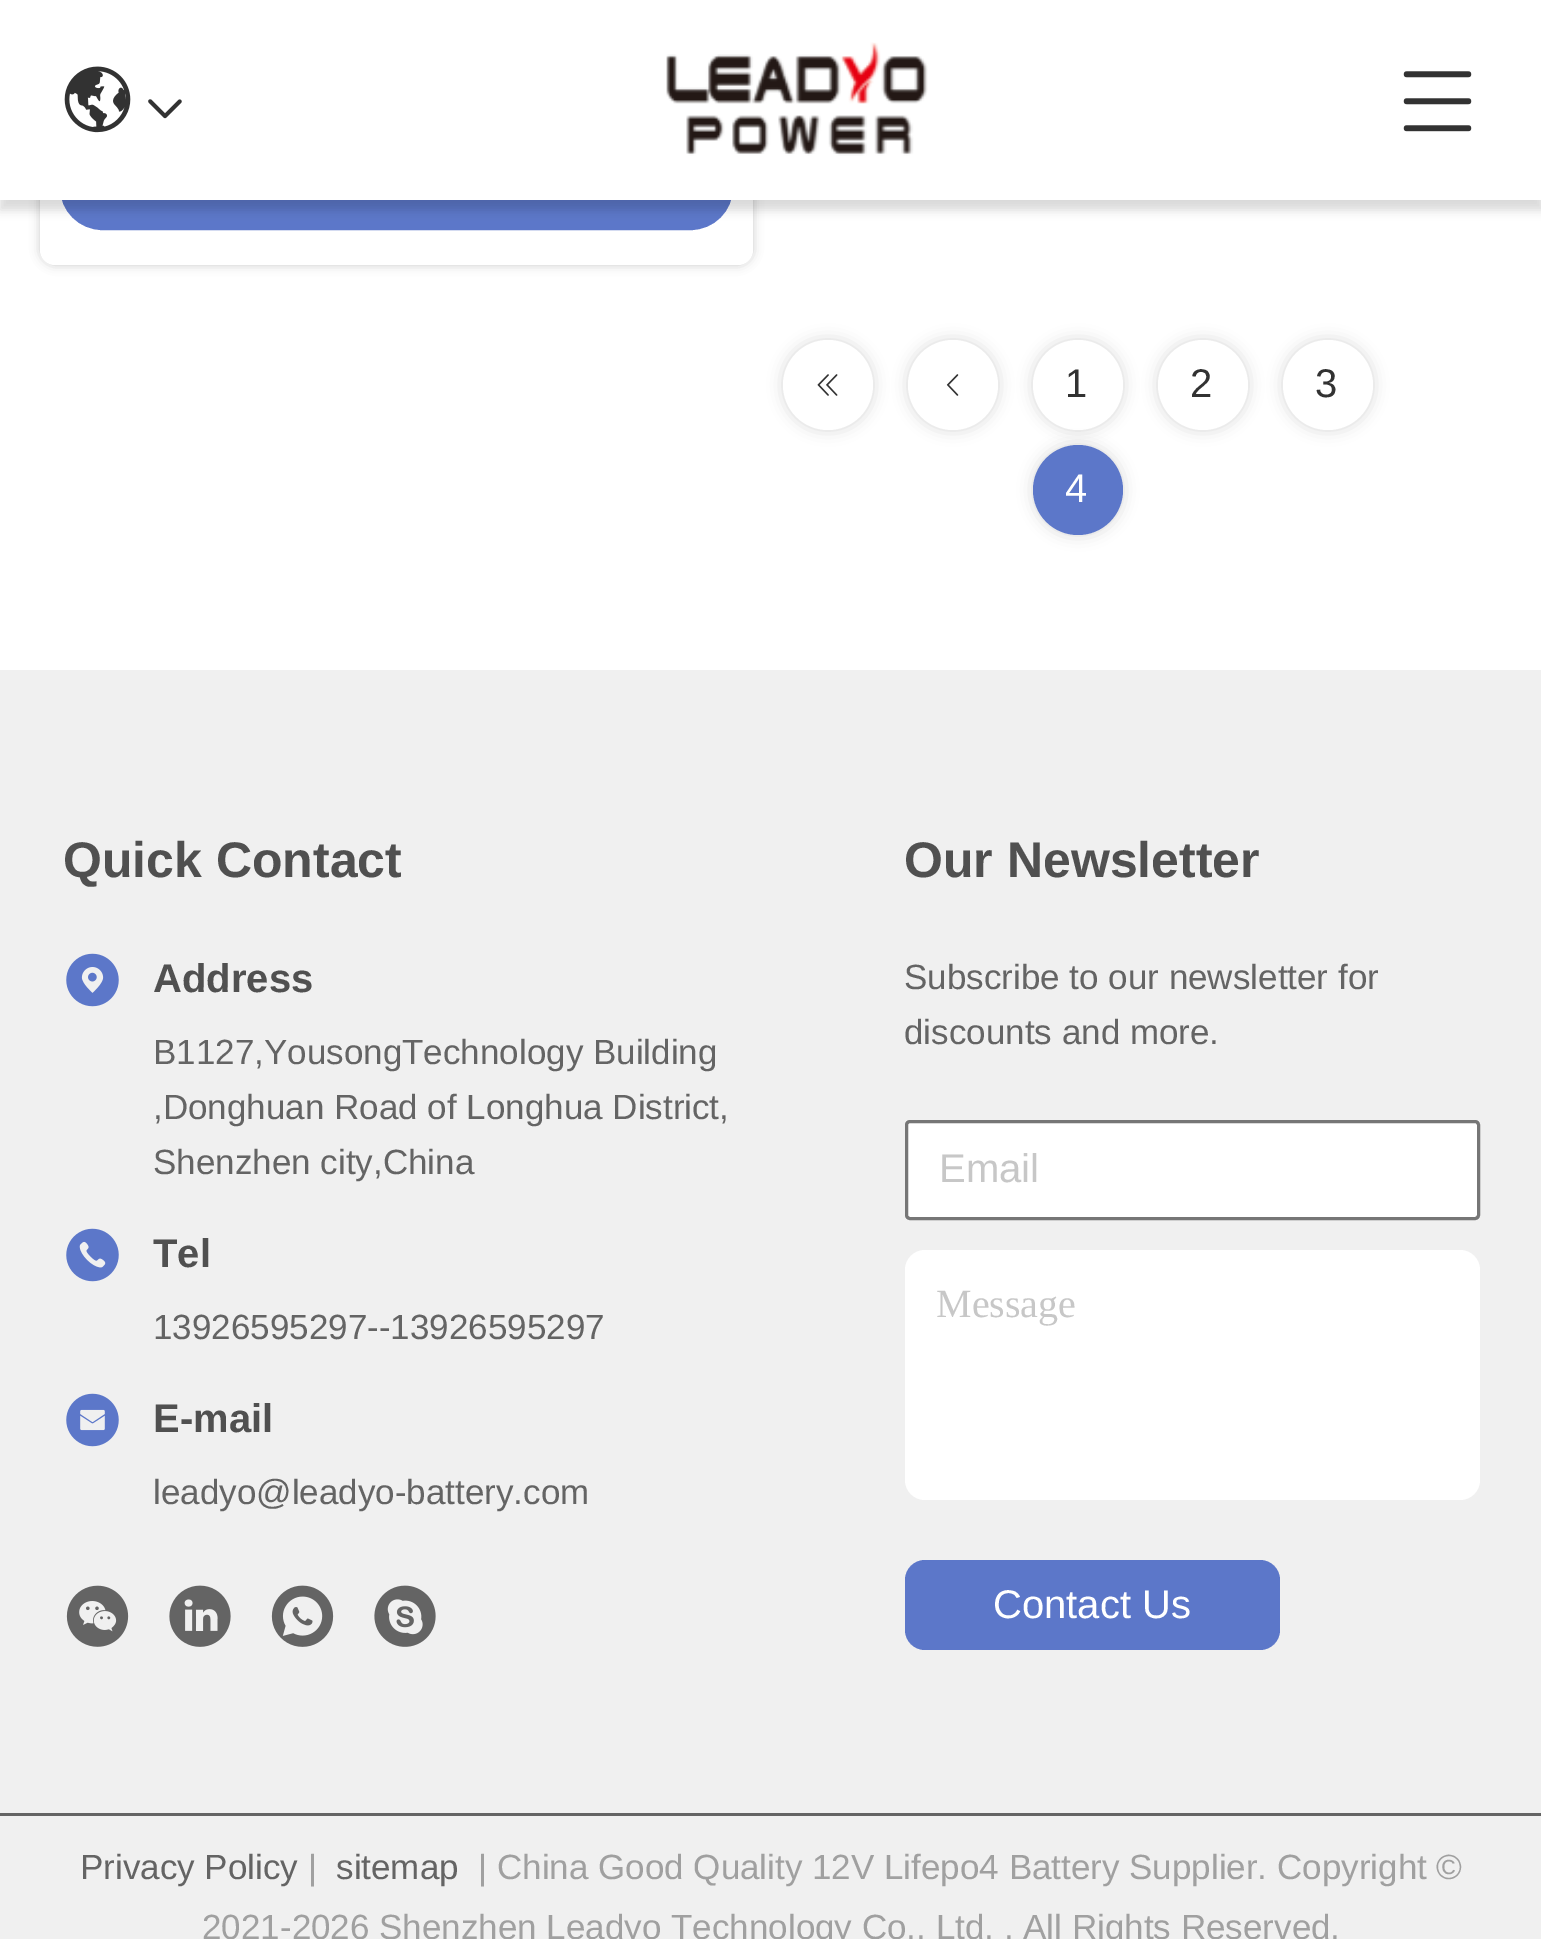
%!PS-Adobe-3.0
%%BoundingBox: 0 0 1541 1939
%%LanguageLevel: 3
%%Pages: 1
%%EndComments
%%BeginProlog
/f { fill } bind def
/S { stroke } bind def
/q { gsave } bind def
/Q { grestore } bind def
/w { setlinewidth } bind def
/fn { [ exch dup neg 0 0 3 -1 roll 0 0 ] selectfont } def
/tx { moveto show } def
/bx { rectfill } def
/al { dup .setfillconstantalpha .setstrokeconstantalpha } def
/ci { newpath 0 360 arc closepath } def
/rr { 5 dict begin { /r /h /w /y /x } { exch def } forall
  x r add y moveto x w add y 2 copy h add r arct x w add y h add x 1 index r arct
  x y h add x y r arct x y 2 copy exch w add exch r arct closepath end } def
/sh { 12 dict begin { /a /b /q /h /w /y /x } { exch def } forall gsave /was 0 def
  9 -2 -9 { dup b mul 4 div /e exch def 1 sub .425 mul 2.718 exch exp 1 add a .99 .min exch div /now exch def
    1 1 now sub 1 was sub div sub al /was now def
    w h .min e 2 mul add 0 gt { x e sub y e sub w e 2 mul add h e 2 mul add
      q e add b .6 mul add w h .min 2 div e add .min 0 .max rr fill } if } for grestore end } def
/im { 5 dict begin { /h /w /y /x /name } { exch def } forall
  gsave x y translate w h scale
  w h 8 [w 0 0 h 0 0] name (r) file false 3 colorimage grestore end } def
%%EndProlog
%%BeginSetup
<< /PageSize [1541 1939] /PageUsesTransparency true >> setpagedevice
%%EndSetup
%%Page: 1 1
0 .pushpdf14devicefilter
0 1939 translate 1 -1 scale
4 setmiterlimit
1 setgray
0 0 1541 1939 bx
0 setgray
40 -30 713 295 15 5 0.2 sh
1 setgray
40 -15 713 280 15 rr f
0.361 0.467 0.788 setrgbcolor
62.5 147.5 668 80 40 rr q f Q
5 w
S
0 setgray
0 10 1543 200 0 5 0.15 sh
1 setgray
0 0 1541 200 bx
(image0.raw) 64 66 67 67 im
(image1.raw) 148 99 34 20 im
(image2.raw) 666 42 262 114 im
(image3.raw) 1403 71 69 61 im
0 setgray
783 340 90 90 45 7.5 0.15 sh
1 setgray
828 385 45 ci f
(image4.raw) 817 374 21 22 im
0 setgray
908 340 90 90 45 7.5 0.15 sh
1 setgray
953 385 45 ci f
(image5.raw) 946 374 13 22 im
0 setgray
1033 340 90 90 45 7.5 0.15 sh
1 setgray
1078 385 45 ci f
/LiberationSans-Regular 40 fn
0.196 setgray
(1) 1065 397 tx
0 setgray
1158 340 90 90 45 7.5 0.15 sh
1 setgray
1203 385 45 ci f
0.196 setgray
(2) 1190 397 tx
0 setgray
1283 340 90 90 45 7.5 0.15 sh
1 setgray
1328 385 45 ci f
0.196 setgray
(3) 1315 397 tx
0 setgray
1033 445 90 90 45 7.5 0.15 sh
0.361 0.467 0.788 setrgbcolor
1078 490 45 ci f
1 setgray
(4) 1065 502 tx
0.941 setgray
0 670 1541 1269 bx
/LiberationSans-Bold 50 fn
0.314 setgray
(Quick Contact) 63 877 tx
(image6.raw) 66 953 53 54 im
/LiberationSans-Bold 40 fn
(Address) 153 992 tx
/LiberationSans-Regular 35 fn
0.392 setgray
(B1127,YousongTechnology Building) 153 1064 tx
(,Donghuan Road of Longhua District,) 153 1119 tx
(Shenzhen city,China) 153 1174 tx
(image7.raw) 66 1228 53 54 im
/LiberationSans-Bold 40 fn
0.314 setgray
(Tel) 153 1267 tx
/LiberationSans-Regular 35 fn
0.392 setgray
(13926595297--13926595297) 153 1339 tx
(image8.raw) 66 1393 53 54 im
/LiberationSans-Bold 40 fn
0.314 setgray
(E-mail) 153 1432 tx
/LiberationSans-Regular 35 fn
0.392 setgray
(leadyo@leadyo-battery.com) 153 1504 tx
(image9.raw) 66 1585 63 62 im
(image10.raw) 169 1585 62 62 im
(image11.raw) 271 1585 63 62 im
(image12.raw) 374 1585 62 62 im
/LiberationSans-Bold 50 fn
0.314 setgray
(Our Newsletter) 904 877 tx
/LiberationSans-Regular 35 fn
0.392 setgray
(Subscribe to our newsletter for) 904 989 tx
(discounts and more.) 904 1044 tx
1 setgray
906.5 1121.5 572 97 3.5 rr q f Q
0.463 setgray
3 w
S
/LiberationSans-Regular 40 fn
0.78 setgray
(Email) 939 1182 tx
1 setgray
905 1250 575 250 20 rr f
/LiberationSerif-Regular 40 fn
0.78 setgray
(Message) 936 1317 tx
0.361 0.467 0.788 setrgbcolor
905 1560 375 90 20 rr f
/LiberationSans-Regular 40 fn
1 setgray
(Contact Us) 993 1618 tx
0.392 setgray
0 1813 1541 3 bx
/LiberationSans-Regular 35 fn
(Privacy Policy) 80 1879 tx
0.627 setgray
(|) 308 1879 tx
0.392 setgray
(sitemap) 336 1879 tx
0.627 setgray
(| China Good Quality 12V Lifepo4 Battery Supplier. Copyright ©) 478 1879 tx
(2021-2026 Shenzhen Leadyo Technology Co., Ltd. . All Rights Reserved.) 202 1939 tx
.poppdf14devicefilter showpage
%%EOF
